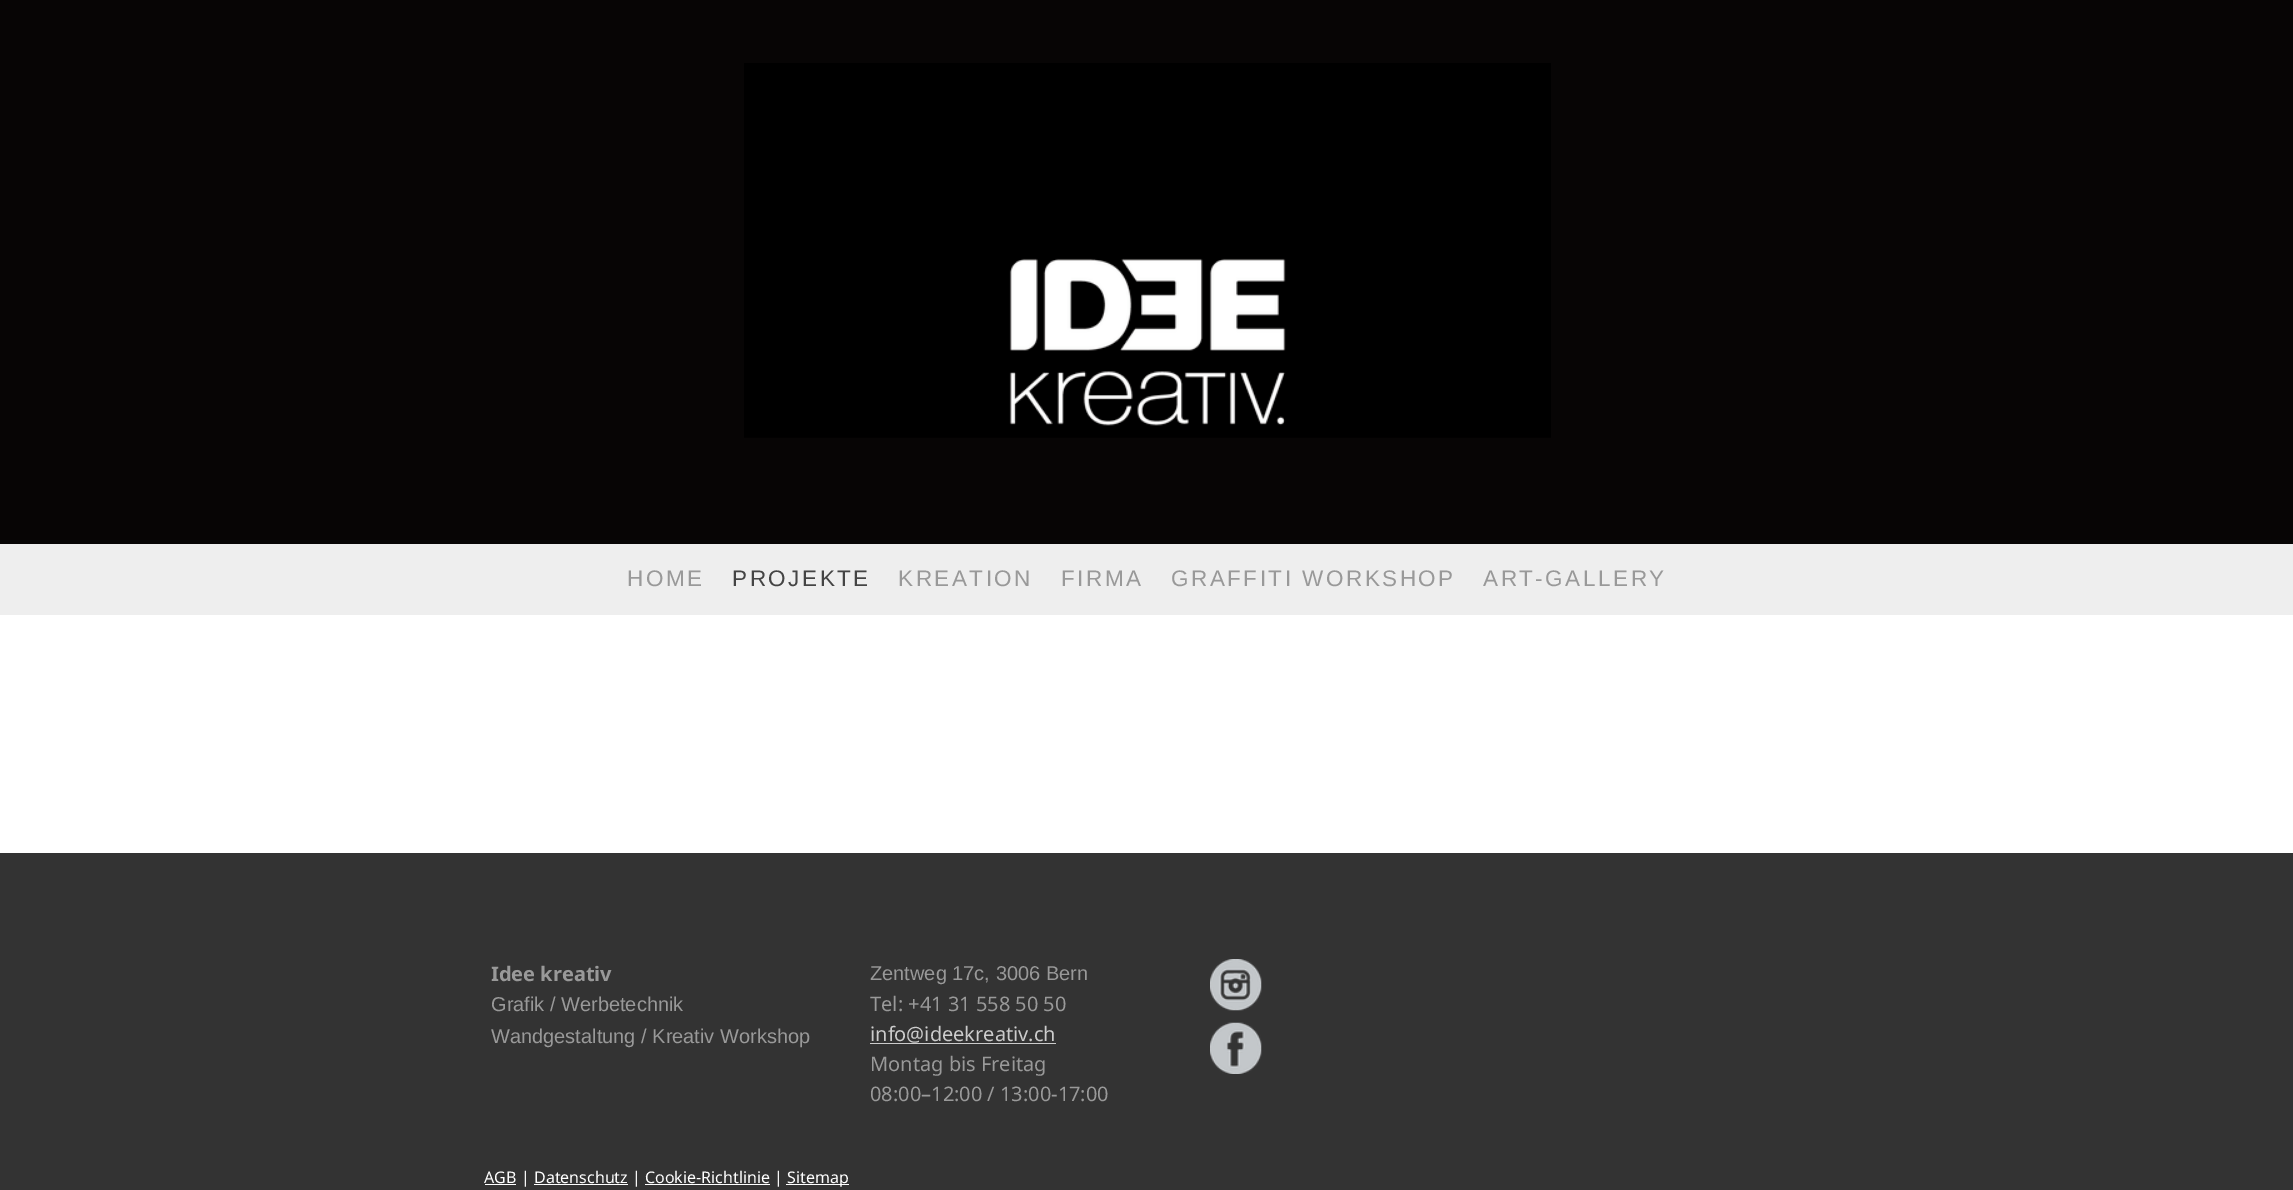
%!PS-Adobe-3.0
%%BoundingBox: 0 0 2293 1190
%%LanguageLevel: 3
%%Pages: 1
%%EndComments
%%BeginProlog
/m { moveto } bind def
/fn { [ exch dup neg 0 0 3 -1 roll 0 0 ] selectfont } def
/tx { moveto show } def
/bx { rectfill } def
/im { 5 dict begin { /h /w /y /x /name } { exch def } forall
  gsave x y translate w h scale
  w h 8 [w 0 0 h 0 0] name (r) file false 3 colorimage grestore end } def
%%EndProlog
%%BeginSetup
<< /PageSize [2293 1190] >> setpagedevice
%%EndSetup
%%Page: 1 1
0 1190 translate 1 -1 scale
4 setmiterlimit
1 setgray
0 0 2293 1190 bx
0.027 0.02 0.02 setrgbcolor
0 0 2293 544 bx
(image0.raw) 744 63 807 375 im
0.933 setgray
0 544 2293 71 bx
/LiberationSans-Regular 22.5 fn
0.6 setgray
627 586 m 2.5 0 (HOME) ashow
0.267 setgray
732 586 m 2.5 0 (PROJEKTE) ashow
0.6 setgray
898 586 m 2.5 0 (KREATION) ashow
1061 586 m 2.5 0 (FIRMA) ashow
1171 586 m 2.5 0 (GRAFFITI WORKSHOP) ashow
1483 586 m 2.5 0 (ART-GALLERY) ashow
0.2 setgray
0 853 2293 337 bx
/NotoSans-Bold 20 fn
0.6 setgray
(Idee kreativ) 491 981 tx
/LiberationSans-Regular 20 fn
(Grafik / Werbetechnik) 491 1011 tx
(Wandgestaltung / Kreativ Workshop) 491 1043 tx
(Zentweg 17c, 3006 Bern) 870 980 tx
/NotoSans-Regular 20 fn
(Tel: +41 31 558 50 50) 870 1011 tx
0.8 setgray
(info@ideekreativ.ch) 870 1041 tx
870 1043 186 1 bx
0.6 setgray
(Montag bis Freitag) 870 1071 tx
(08:00–12:00 / 13:00-17:00) 870 1101 tx
(image1.raw) 1210 959 52 52 im
(image2.raw) 1210 1022 52 52 im
/NotoSans-Regular 16 fn
1 setgray
(AGB) 484 1183 tx
485 1184 31 1 bx
0.965 setgray
(|) 521 1183 tx
1 setgray
(Datenschutz) 534 1183 tx
534 1184 94 1 bx
0.965 setgray
(|) 632 1183 tx
1 setgray
(Cookie-Richtlinie) 645 1183 tx
645 1184 125 1 bx
0.965 setgray
(|) 774 1183 tx
1 setgray
786 1184 63 1 bx
(Sitemap) 787 1183 tx
showpage
%%EOF
